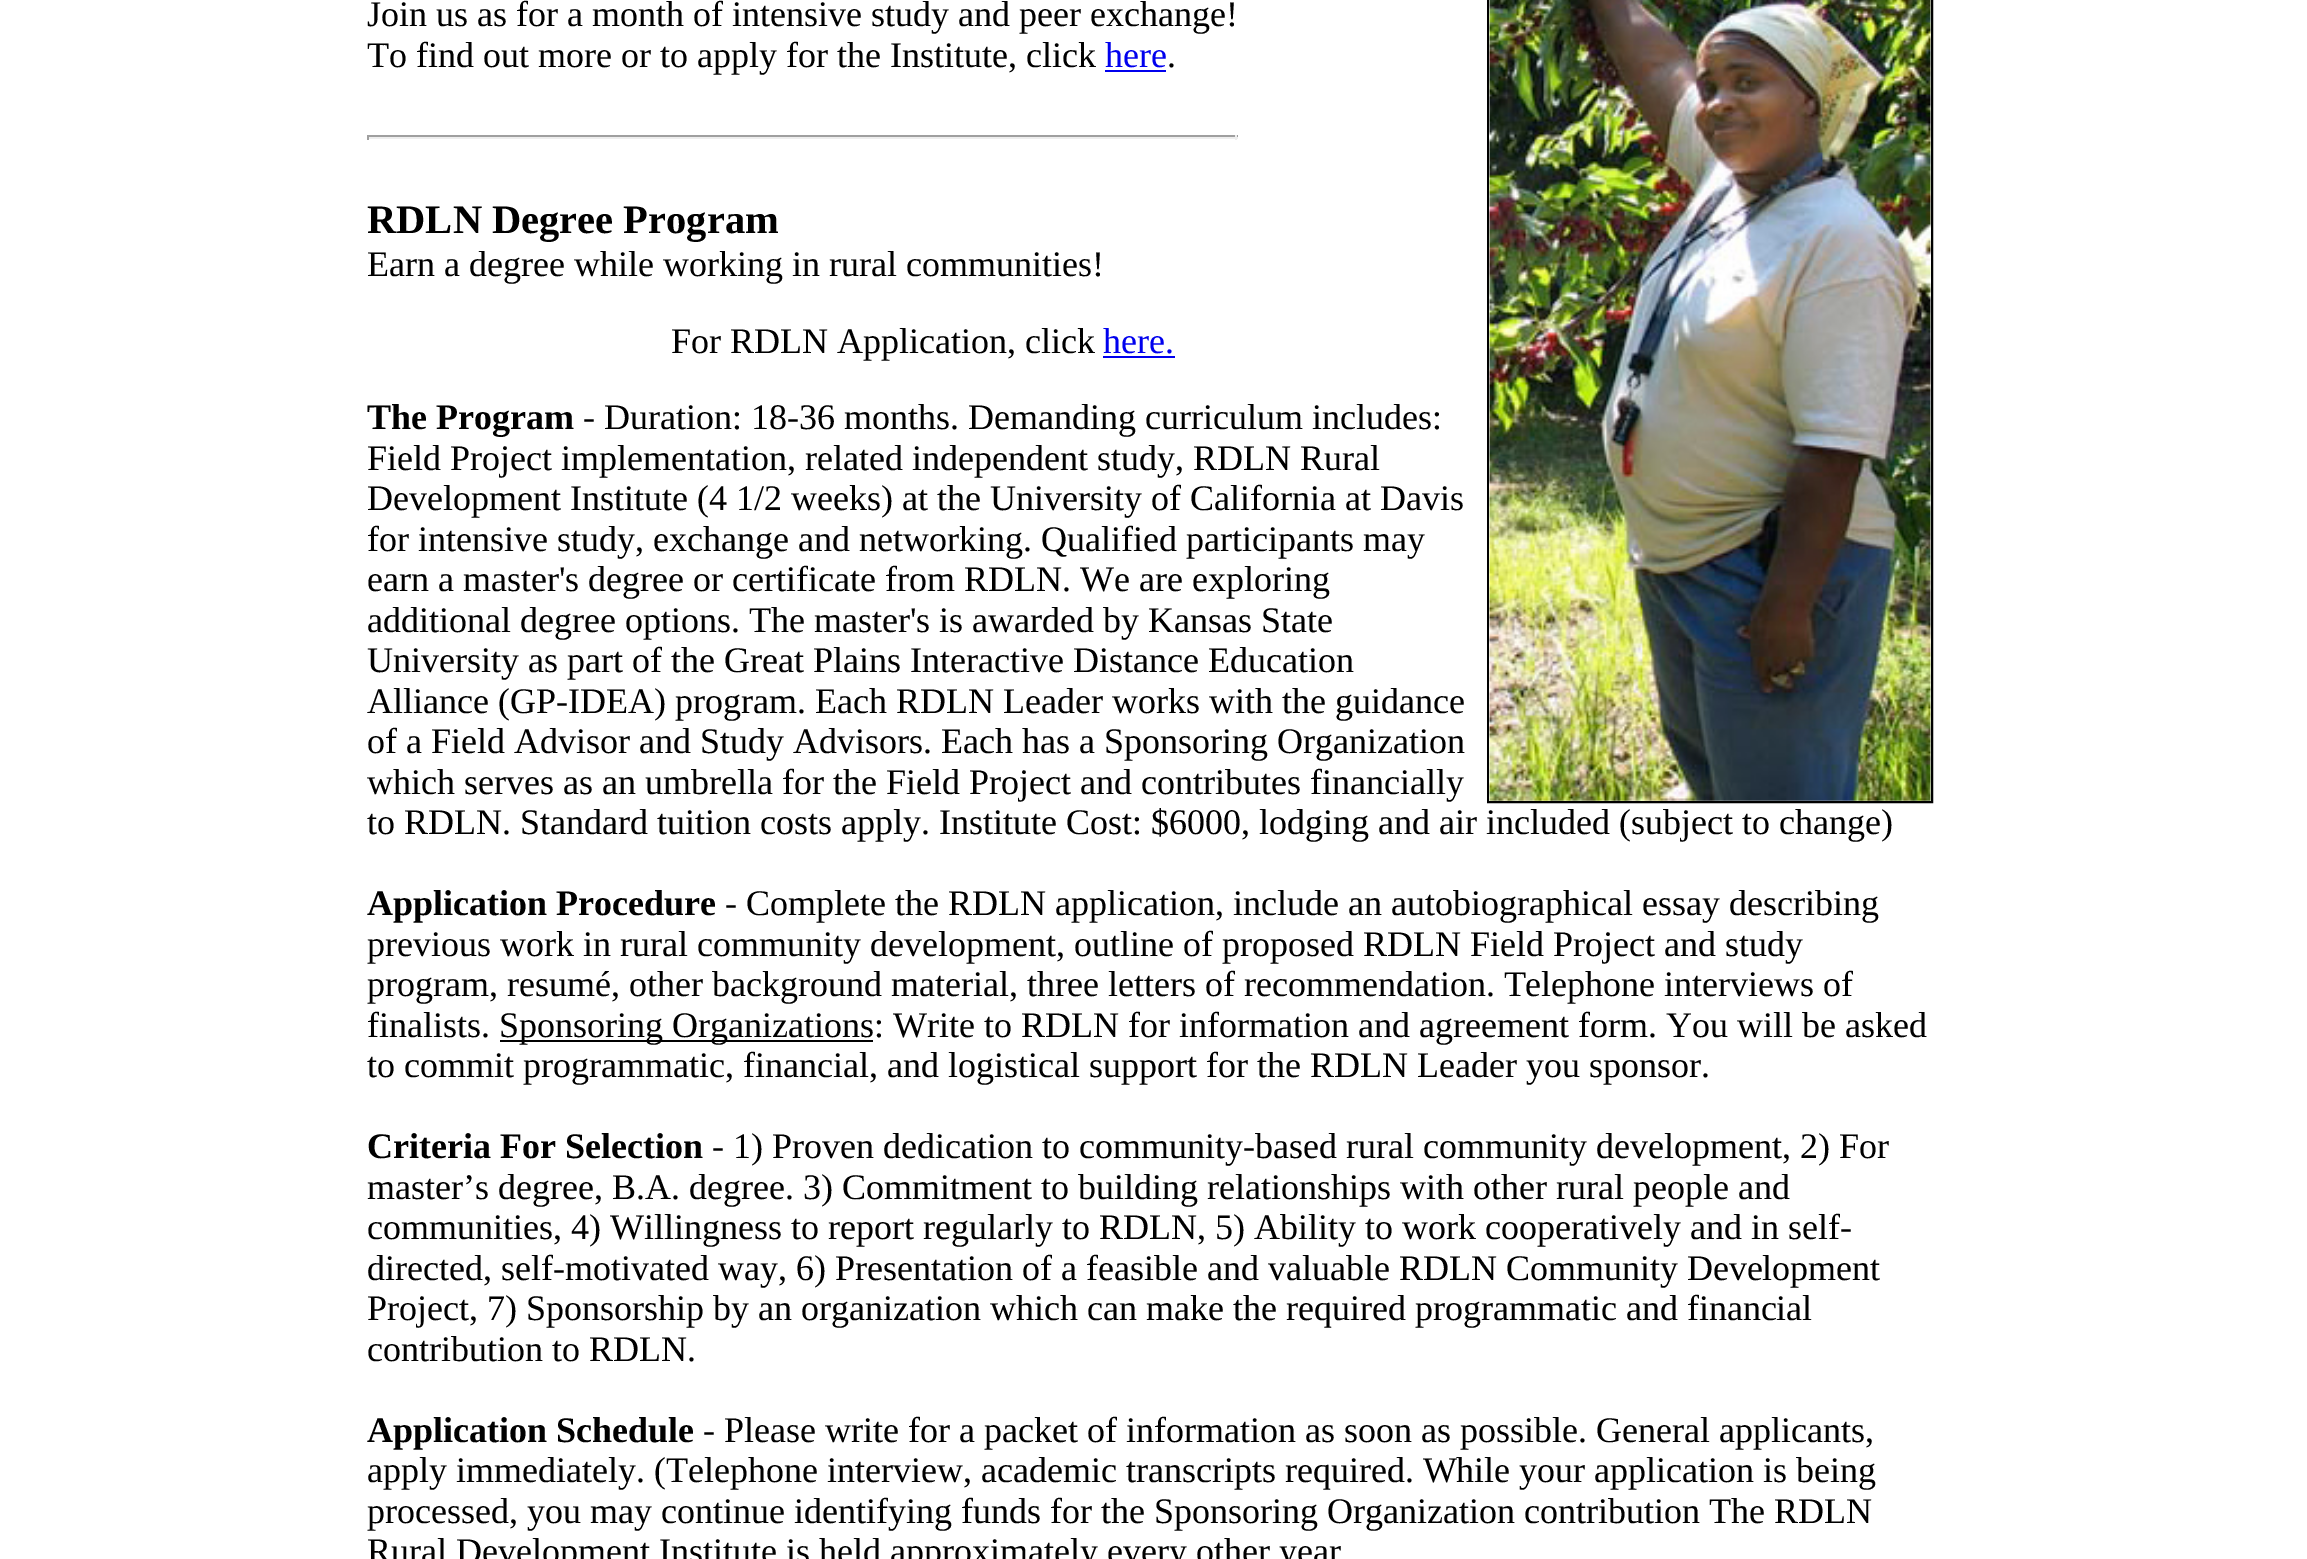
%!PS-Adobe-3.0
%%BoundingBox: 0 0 2307 1559
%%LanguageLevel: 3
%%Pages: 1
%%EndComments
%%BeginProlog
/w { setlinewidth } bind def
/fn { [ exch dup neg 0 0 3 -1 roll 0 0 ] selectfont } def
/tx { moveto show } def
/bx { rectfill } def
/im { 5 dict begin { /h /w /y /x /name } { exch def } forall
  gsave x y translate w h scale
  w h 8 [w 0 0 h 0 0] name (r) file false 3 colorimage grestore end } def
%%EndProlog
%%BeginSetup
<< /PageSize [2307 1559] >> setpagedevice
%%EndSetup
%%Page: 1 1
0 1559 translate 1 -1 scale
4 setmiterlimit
1 setgray
0 0 2307 1559 bx
/LiberationSerif-Regular 36 fn
0 setgray
(Join us as for a month of intensive study and peer exchange!) 367 26 tx
2 w
1488 -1 444 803 rectstroke
(image0.raw) 1489 0 442 801 im
(To find out more or to apply for the Institute, click) 367 67 tx
0 0 0.933 setrgbcolor
(here) 1105 67 tx
1105 70 61 2 bx
0 setgray
(.) 1167 67 tx
0.624 setgray
367 135 871 2 bx
0.933 setgray
1235 135 2 5 bx
367 137 871 2 bx
0.624 setgray
367 135 2 5 bx
/LiberationSerif-Bold 40.5 fn
0 setgray
(RDLN Degree Program) 367 233 tx
/LiberationSerif-Regular 36 fn
(Earn a degree while working in rural communities!) 367 276 tx
(For RDLN Application, click) 671 353 tx
0 0 0.933 setrgbcolor
(here.) 1103 353 tx
1103 356 72 2 bx
/LiberationSerif-Bold 36 fn
0 setgray
(The Program) 367 429 tx
/LiberationSerif-Regular 36 fn
(- Duration: 18-36 months. Demanding curriculum includes:) 583 429 tx
(Field Project implementation, related independent study, RDLN Rural) 367 470 tx
(Development Institute \(4 1/2 weeks\) at the University of California at Davis) 367 510 tx
(for intensive study, exchange and networking. Qualified participants may) 367 551 tx
(earn a master's degree or certificate from RDLN. We are exploring) 367 591 tx
(additional degree options. The master's is awarded by Kansas State) 367 632 tx
(University as part of the Great Plains Interactive Distance Education) 367 672 tx
(Alliance \(GP-IDEA\) program. Each RDLN Leader works with the guidance) 367 713 tx
(of a Field Advisor and Study Advisors. Each has a Sponsoring Organization) 367 753 tx
(which serves as an umbrella for the Field Project and contributes financially) 367 794 tx
(to RDLN. Standard tuition costs apply. Institute Cost: $6000, lodging and air included \(subject to change\)) 367 834 tx
/LiberationSerif-Bold 36 fn
(Application Procedure) 367 915 tx
/LiberationSerif-Regular 36 fn
(- Complete the RDLN application, include an autobiographical essay describing) 725 915 tx
(previous work in rural community development, outline of proposed RDLN Field Project and study) 367 956 tx
(program, resumé, other background material, three letters of recommendation. Telephone interviews of) 367 996 tx
(finalists.) 367 1037 tx
500 1040 373 2 bx
(Sponsoring Organizations: Write to RDLN for information and agreement form. You will be asked) 499 1037 tx
(to commit programmatic, financial, and logistical support for the RDLN Leader you sponsor.) 367 1077 tx
/LiberationSerif-Bold 36 fn
(Criteria For Selection) 367 1158 tx
/LiberationSerif-Regular 36 fn
(- 1\) Proven dedication to community-based rural community development, 2\) For) 712 1158 tx
(master’s degree, B.A. degree. 3\) Commitment to building relationships with other rural people and) 367 1199 tx
(communities, 4\) Willingness to report regularly to RDLN, 5\) Ability to work cooperatively and in self-) 367 1239 tx
(directed, self-motivated way, 6\) Presentation of a feasible and valuable RDLN Community Development) 367 1280 tx
(Project, 7\) Sponsorship by an organization which can make the required programmatic and financial) 367 1320 tx
(contribution to RDLN.) 367 1361 tx
/LiberationSerif-Bold 36 fn
(Application Schedule) 367 1442 tx
/LiberationSerif-Regular 36 fn
(- Please write for a packet of information as soon as possible. General applicants,) 703 1442 tx
(apply immediately. \(Telephone interview, academic transcripts required. While your application is being) 367 1482 tx
(processed, you may continue identifying funds for the Sponsoring Organization contribution The RDLN) 367 1523 tx
(Rural Development Institute is held approximately every other year) 367 1563 tx
showpage
%%EOF
